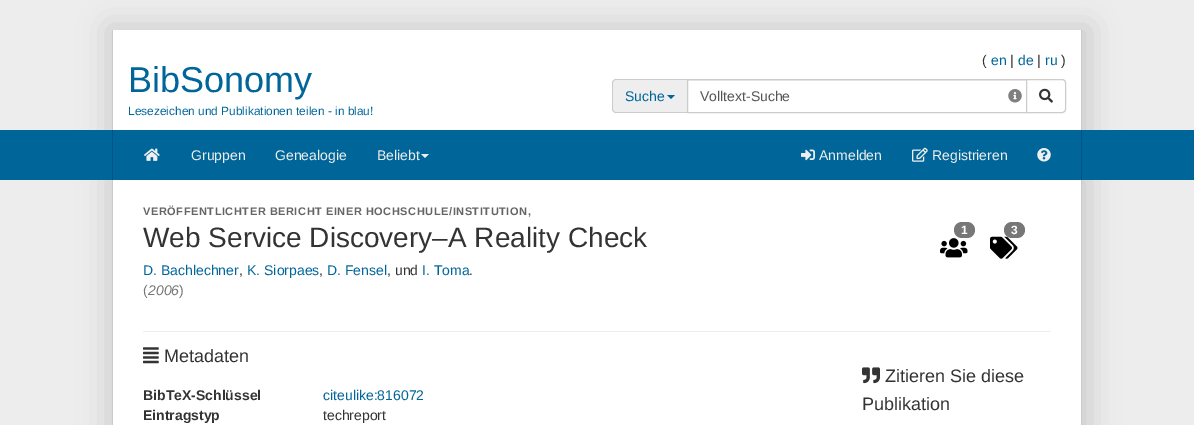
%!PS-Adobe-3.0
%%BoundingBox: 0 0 1194 425
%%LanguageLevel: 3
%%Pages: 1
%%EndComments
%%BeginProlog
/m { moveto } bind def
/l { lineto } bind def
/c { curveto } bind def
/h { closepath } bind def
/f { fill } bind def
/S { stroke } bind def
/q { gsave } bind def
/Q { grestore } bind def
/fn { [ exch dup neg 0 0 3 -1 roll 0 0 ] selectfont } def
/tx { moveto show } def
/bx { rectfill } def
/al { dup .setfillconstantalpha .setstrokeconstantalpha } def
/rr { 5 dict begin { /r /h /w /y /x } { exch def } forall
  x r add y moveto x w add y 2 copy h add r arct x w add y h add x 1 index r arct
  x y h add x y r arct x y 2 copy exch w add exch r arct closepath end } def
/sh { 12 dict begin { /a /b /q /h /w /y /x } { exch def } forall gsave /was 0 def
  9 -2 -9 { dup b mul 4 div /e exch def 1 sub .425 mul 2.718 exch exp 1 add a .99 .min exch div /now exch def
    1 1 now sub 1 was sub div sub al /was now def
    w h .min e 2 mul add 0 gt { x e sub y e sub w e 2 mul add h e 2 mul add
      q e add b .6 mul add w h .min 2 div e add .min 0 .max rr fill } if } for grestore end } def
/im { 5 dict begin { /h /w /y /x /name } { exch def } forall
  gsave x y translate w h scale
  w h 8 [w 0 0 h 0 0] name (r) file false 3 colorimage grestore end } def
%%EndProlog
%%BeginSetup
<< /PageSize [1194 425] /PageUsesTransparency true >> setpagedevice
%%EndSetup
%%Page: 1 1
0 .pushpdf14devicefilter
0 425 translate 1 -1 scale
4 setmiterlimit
0.929 setgray
0 0 1194 425 bx
0.796 setgray
108 26 982 112 0 15 1 sh
1 setgray
113 30 968 100 bx
0.796 setgray
1081 30 1 100 bx
112 30 1 100 bx
/LiberationSans-Regular 36 fn
0 0.4 0.6 setrgbcolor
(BibSonomy) 128 92 tx
/LiberationSans-Regular 11.9 fn
(Lesezeichen und Publikationen teilen - in blau!) 128 115 tx
/LiberationSans-Regular 14 fn
0.2 setgray
(\() 982 65 tx
0 0.4 0.6 setrgbcolor
(en) 991 65 tx
0.2 setgray
(|) 1010 65 tx
0 0.4 0.6 setrgbcolor
(de) 1018 65 tx
0.2 setgray
(|) 1037 65 tx
0 0.4 0.6 setrgbcolor
(ru) 1045 65 tx
0.2 setgray
(\)) 1061 65 tx
0.933 setgray
616 79 m 687 79 l 687 113 l 616 113 l 614 113 612 111 612 109 c 612 83 l 612 81 614 79 616 79 c h f
0.8 setgray
616 79 m 687 79 l 687 113 l 616 113 l 614 113 612 111 612 109 c 612 83 l 612 81 614 79 616 79 c h 616 80 m 687 80 l 687 112 l 616 112 l 614 112 613 111 613 109 c 613 83 l 613 81 614 80 616 80 c h eofill
0 0.4 0.6 setrgbcolor
(Suche) 625 101 tx
667 95 m 675 95 l 671 99 l h f
0.925 setgray
688 80 338 1 bx
0.8 setgray
687.5 79.5 339 33 rectstroke
0.333 setgray
(Volltext-Suche) 700 101 tx
(image0.raw) 1008 89 14 14 im
1 setgray
1026.5 79.5 m 1062 79.5 l 1064 79.5 1065.5 81 1065.5 83 c 1065.5 109 l 1065.5 111 1064 112.5 1062 112.5 c 1026.5 112.5 l h q f Q
0.8 setgray
S
(image1.raw) 1039 88 14 15 im
0.796 setgray
108 176 982 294 0 15 1 sh
0 0.4 0.6 setrgbcolor
0 130 1194 50 bx
0 0.333 0.533 setrgbcolor
1081 130 1 50 bx
112 130 1 50 bx
(image2.raw) 144 148 16 13 im
0.937 setgray
(Gruppen) 191 160 tx
(Genealogie) 275 160 tx
(Beliebt) 377 160 tx
421 154 m 429 154 l 425 158 l h f
(image3.raw) 801 149 14 12 im
(Anmelden) 819 160 tx
(image4.raw) 912 147 16 15 im
(Registrieren) 932 160 tx
(image5.raw) 1037 148 14 14 im
1 setgray
113 180 968 245 bx
0.796 setgray
1081 180 1 245 bx
112 180 1 245 bx
/LiberationSans-Bold 11 fn
0.396 setgray
143 215 m 0.55 0 (VERÖFFENTLICHTER BERICHT EINER HOCHSCHULE/INSTITUTION,) ashow
/LiberationSans-Regular 28 fn
0.2 setgray
(Web Service Discovery–A Reality Check) 143 247 tx
/LiberationSans-Regular 14 fn
0 0.4 0.6 setrgbcolor
(D. Bachlechner) 143 275 tx
0.2 setgray
(,) 239 275 tx
0 0.4 0.6 setrgbcolor
(K. Siorpaes) 247 275 tx
0.2 setgray
(,) 319 275 tx
0 0.4 0.6 setrgbcolor
(D. Fensel) 327 275 tx
0.2 setgray
(, und) 387 275 tx
0 0.4 0.6 setrgbcolor
(I. Toma) 422 275 tx
0.2 setgray
(.) 469 275 tx
0.467 setgray
(\() 143 295 tx
/LiberationSans-Italic 14 fn
(2006) 148 295 tx
/LiberationSans-Regular 14 fn
(\)) 179 295 tx
954 222 21 16 8 rr f
/LiberationSans-Bold 12 fn
1 setgray
(1) 961 234 tx
(image6.raw) 940 238 28 20 im
(image7.raw) 990 236 28 23 im
0.467 setgray
1004 222 21 16 8 rr f
1 setgray
(3) 1011 234 tx
0.933 setgray
143 331 908 1 bx
(image8.raw) 143 347 16 17 im
/LiberationSans-Regular 18 fn
0.2 setgray
(Metadaten) 164 362 tx
/LiberationSans-Bold 14 fn
(BibTeX-Schlüssel) 143 400 tx
/LiberationSans-Regular 14 fn
0 0.4 0.6 setrgbcolor
(citeulike:816072) 323 400 tx
/LiberationSans-Bold 14 fn
0.2 setgray
(Eintragstyp) 143 420 tx
/LiberationSans-Regular 14 fn
(techreport) 323 420 tx
(image9.raw) 862 367 18 17 im
/LiberationSans-Regular 18 fn
(Zitieren Sie diese) 885 382 tx
(Publikation) 862 410 tx
.poppdf14devicefilter showpage
%%EOF
